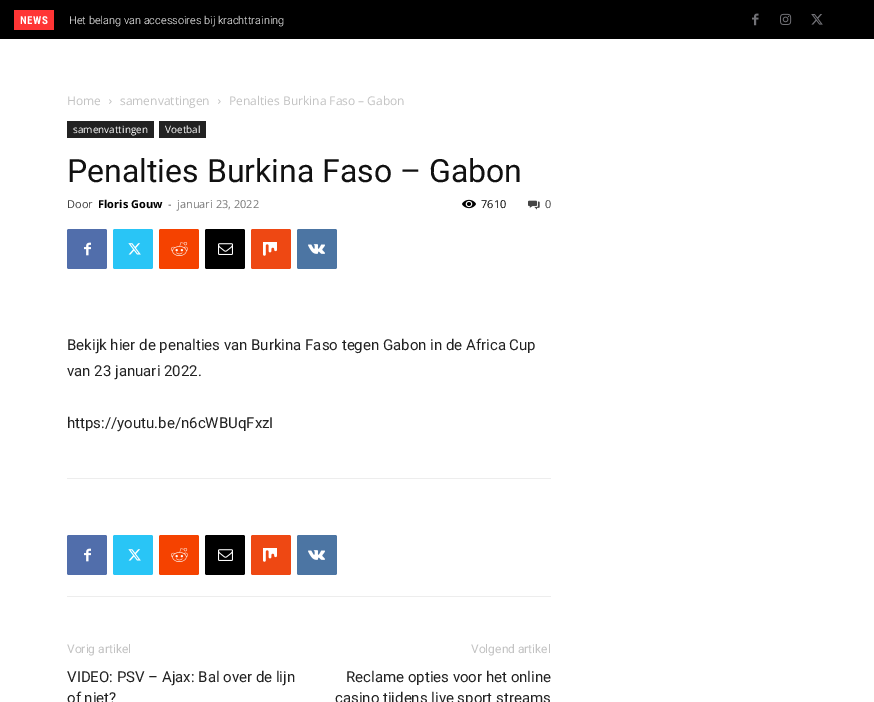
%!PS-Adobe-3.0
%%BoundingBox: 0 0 874 702
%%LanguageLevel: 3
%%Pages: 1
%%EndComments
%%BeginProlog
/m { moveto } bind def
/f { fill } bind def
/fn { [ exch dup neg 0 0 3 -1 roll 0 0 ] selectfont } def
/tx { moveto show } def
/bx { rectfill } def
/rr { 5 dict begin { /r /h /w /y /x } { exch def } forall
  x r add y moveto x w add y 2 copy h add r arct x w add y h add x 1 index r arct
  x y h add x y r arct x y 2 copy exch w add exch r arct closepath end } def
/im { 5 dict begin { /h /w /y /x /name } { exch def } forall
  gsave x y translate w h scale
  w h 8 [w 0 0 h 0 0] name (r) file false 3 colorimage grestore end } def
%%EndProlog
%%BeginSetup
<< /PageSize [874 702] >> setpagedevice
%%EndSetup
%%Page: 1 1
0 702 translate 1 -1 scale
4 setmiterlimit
1 setgray
0 0 874 702 bx
0 setgray
0 0 874 39 bx
1 0.208 0.208 setrgbcolor
14 10 40 20 bx
/RobotoCondensed-Bold 11 fn
1 setgray
20 24 m 0.5 0 (NEWS) ashow
/Roboto-Light 11 fn
(Het belang van accessoires bij krachttraining) 69 24 tx
(image0.raw) 752 13 7 13 im
(image1.raw) 780 13 12 12 im
(image2.raw) 811 14 12 11 im
/OpenSans-Regular 12 fn
0.765 setgray
(Home) 67 105 tx
(image3.raw) 109 99 3 5 im
(samenvattingen) 120 105 tx
(image3.raw) 218 99 3 5 im
(Penalties Burkina Faso – Gabon) 229 105 tx
0.133 setgray
67 121 87 17 bx
/OpenSans-Regular 10 fn
1 setgray
(samenvattingen) 73 133 tx
0.133 setgray
159 121 47 17 bx
1 setgray
(Voetbal) 165 133 tx
/Roboto-Regular 32 fn
0.067 setgray
(Penalties Burkina Faso – Gabon) 67 182 tx
/OpenSans-Regular 11 fn
0.267 setgray
(Door) 67 208 tx
/OpenSans-Bold 11 fn
0 setgray
(Floris Gouw) 98 208 tx
/OpenSans-Regular 11 fn
0.267 setgray
(-) 168 208 tx
0.463 setgray
(januari 23, 2022) 177 208 tx
(image4.raw) 462 199 14 10 im
0 setgray
(7610) 481 208 tx
(image5.raw) 528 200 12 10 im
0.267 setgray
(0) 545 208 tx
0.318 0.431 0.671 setrgbcolor
67 229 40 40 2 rr f
(image6.raw) 84 242 7 14 im
0.161 0.773 0.965 setrgbcolor
113 229 40 40 2 rr f
(image7.raw) 128 243 13 12 im
0.961 0.259 0 setrgbcolor
159 229 40 40 2 rr f
(image8.raw) 171 242 17 14 im
0 setgray
205 229 40 40 2 rr f
(image9.raw) 218 243 15 12 im
0.933 0.282 0.075 setrgbcolor
251 229 40 40 2 rr f
(image10.raw) 263 242 14 14 im
0.298 0.459 0.639 setrgbcolor
297 229 40 40 2 rr f
(image11.raw) 308 244 17 10 im
/Roboto-Regular 15 fn
0.133 setgray
(Bekijk hier de penalties van Burkina Faso tegen Gabon in de Africa Cup) 67 350 tx
(van 23 januari 2022.) 67 376 tx
(https://youtu.be/n6cWBUqFxzI) 67 428 tx
0.929 setgray
67 478 484 1 bx
67 596 484 1 bx
0.318 0.431 0.671 setrgbcolor
67 535 40 40 2 rr f
(image6.raw) 84 548 7 14 im
0.161 0.773 0.965 setrgbcolor
113 535 40 40 2 rr f
(image7.raw) 128 549 13 12 im
0.961 0.259 0 setrgbcolor
159 535 40 40 2 rr f
(image8.raw) 171 548 17 14 im
0 setgray
205 535 40 40 2 rr f
(image9.raw) 218 549 15 12 im
0.933 0.282 0.075 setrgbcolor
251 535 40 40 2 rr f
(image10.raw) 263 548 14 14 im
0.298 0.459 0.639 setrgbcolor
297 535 40 40 2 rr f
(image11.raw) 308 550 17 10 im
/Roboto-Regular 12 fn
0.765 setgray
(Vorig artikel) 67 653 tx
/Roboto-Regular 15 fn
0.133 setgray
(VIDEO: PSV – Ajax: Bal over de lijn) 67 682 tx
(of niet?) 67 703 tx
/Roboto-Regular 12 fn
0.765 setgray
(Volgend artikel) 471 653 tx
/Roboto-Regular 15 fn
0.133 setgray
(Reclame opties voor het online) 346 682 tx
(casino tijdens live sport streams) 335 703 tx
showpage
%%EOF
